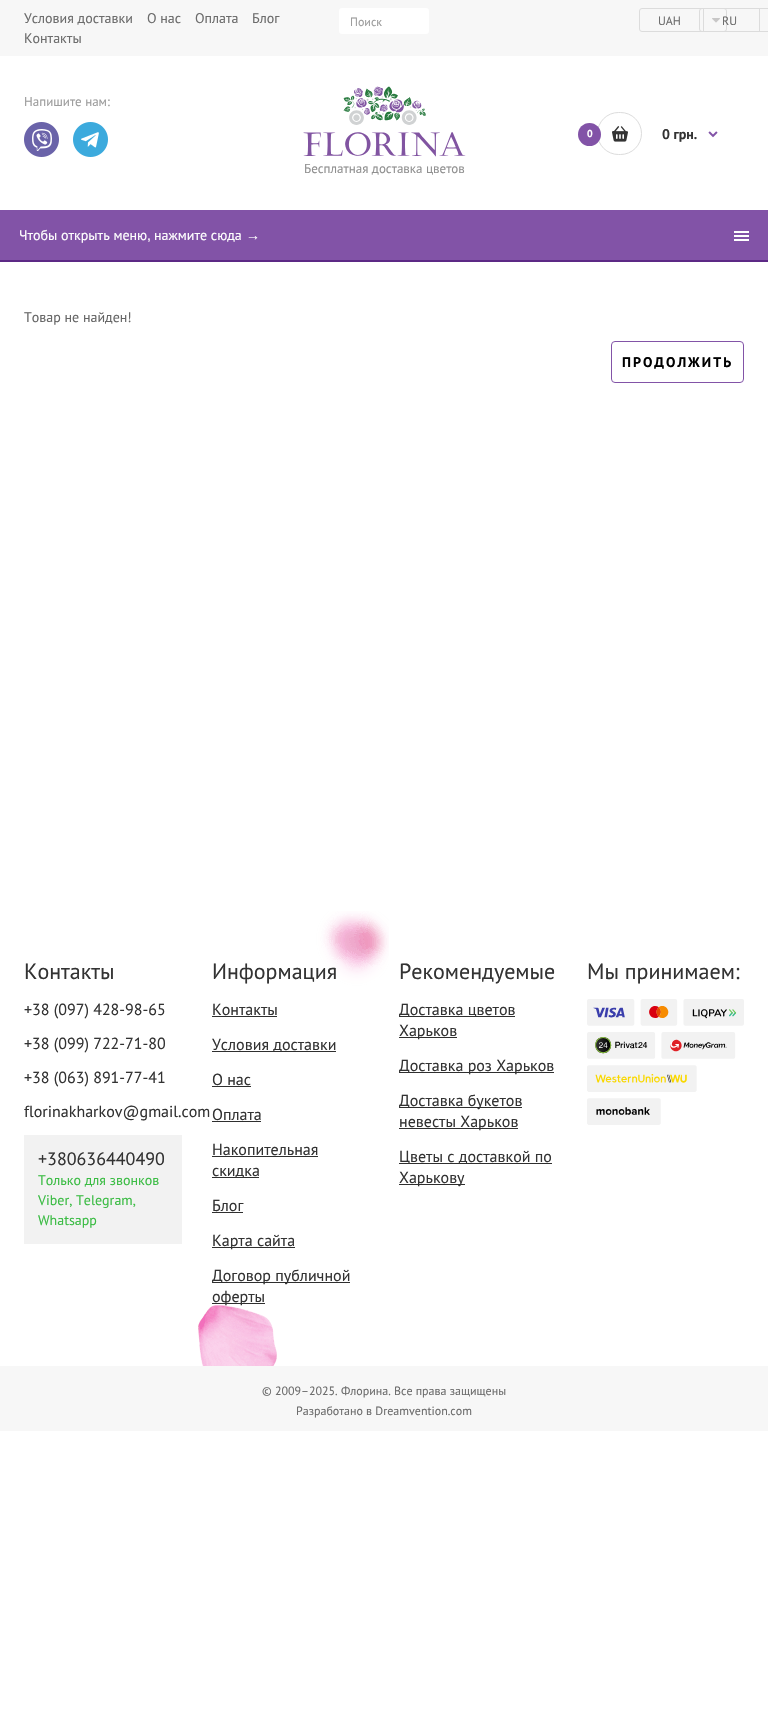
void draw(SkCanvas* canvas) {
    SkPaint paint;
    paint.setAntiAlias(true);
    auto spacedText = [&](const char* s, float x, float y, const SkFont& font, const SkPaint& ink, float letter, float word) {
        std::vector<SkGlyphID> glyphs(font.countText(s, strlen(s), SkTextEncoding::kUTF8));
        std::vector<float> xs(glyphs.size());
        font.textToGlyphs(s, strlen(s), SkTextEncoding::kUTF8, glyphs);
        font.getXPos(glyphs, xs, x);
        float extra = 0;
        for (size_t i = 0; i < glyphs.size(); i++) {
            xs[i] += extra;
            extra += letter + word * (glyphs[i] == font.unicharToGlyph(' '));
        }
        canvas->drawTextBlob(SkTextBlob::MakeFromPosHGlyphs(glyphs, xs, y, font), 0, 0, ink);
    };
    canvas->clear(0xFFFFFFFF);
    canvas->drawImageRect(SkImages::DeferredFromEncodedData(SkData::MakeFromFileName("img1.png")), SkRect::MakeXYWH(198, 911, 191, 455), SkSamplingOptions());
    paint.setColor(0xFFF7F7F7);
    canvas->drawRect(SkRect::MakeXYWH(0, 0, 768, 56), paint);
    SkFont font1(fontMgr->matchFamilyStyle("PT Sans", SkFontStyle::Normal()), 14);
    font1.setSubpixel(true);
    paint.setColor(0xFF6C6C6C);
    canvas->drawString("Условия доставки", 24, 23, font1, paint);
    canvas->drawString("О нас", 147, 23, font1, paint);
    canvas->drawString("Оплата", 195, 23, font1, paint);
    canvas->drawString("Блог", 252, 23, font1, paint);
    canvas->drawString("Контакты", 24, 43, font1, paint);
    paint.setColor(0xFFFFFFFF);
    canvas->drawRoundRect(SkRect::MakeXYWH(339, 8, 90, 26), 3, 3, paint);
    SkFont font2(fontMgr->matchFamilyStyle("PT Sans", SkFontStyle::Normal()), 12);
    font2.setSubpixel(true);
    paint.setColor(0xFF9C9C9C);
    canvas->drawString("Поиск", 350, 26, font2, paint);
    paint.setStyle(SkPaint::kStroke_Style);
    paint.setStrokeWidth(1);
    paint.setColor(0xFFDCDCDC);
    canvas->drawRoundRect(SkRect::MakeXYWH(639.5f, 8.5f, 87, 23), 2.5f, 2.5f, paint);
    paint.setStyle(SkPaint::kFill_Style);
    paint.setColor(0xFF6C6C6C);
    canvas->drawString("UAH", 658, 25, font2, paint);
    paint.setColor(0xFFDCDCDC);
    canvas->drawRect(SkRect::MakeXYWH(703, 9, 1, 22), paint);
    canvas->drawImageRect(SkImages::DeferredFromEncodedData(SkData::MakeFromFileName("img2.png")), SkRect::MakeXYWH(712, 18, 8, 5), SkSamplingOptions());
    paint.setStyle(SkPaint::kStroke_Style);
    canvas->drawRoundRect(SkRect::MakeXYWH(699.5f, 8.5f, 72, 23), 2.5f, 2.5f, paint);
    paint.setStyle(SkPaint::kFill_Style);
    paint.setColor(0xFF6C6C6C);
    canvas->drawString("RU", 722, 25, font2, paint);
    paint.setColor(0xFFDCDCDC);
    canvas->drawRect(SkRect::MakeXYWH(759, 9, 1, 22), paint);
    SkFont font3(fontMgr->matchFamilyStyle("PT Sans", SkFontStyle::Normal()), 13);
    font3.setSubpixel(true);
    paint.setColor(0xFF9C9C9C);
    canvas->drawString("Напишите нам:", 24, 106, font3, paint);
    canvas->drawImageRect(SkImages::DeferredFromEncodedData(SkData::MakeFromFileName("img3.png")), SkRect::MakeXYWH(24, 122, 35, 35), SkSamplingOptions());
    canvas->drawImageRect(SkImages::DeferredFromEncodedData(SkData::MakeFromFileName("img4.png")), SkRect::MakeXYWH(73, 122, 35, 35), SkSamplingOptions());
    paint.setStyle(SkPaint::kStroke_Style);
    paint.setColor(0xFFDCDCDC);
    canvas->drawRoundRect(SkRect::MakeXYWH(597.5f, 112.5f, 44, 42), 21, 21, paint);
    paint.setStyle(SkPaint::kFill_Style);
    paint.setColor(0xFF8253A7);
    canvas->drawCircle(589.5f, 134.5f, 11.5f, paint);
    SkFont font4(fontMgr->matchFamilyStyle("PT Sans", SkFontStyle::Bold()), 10);
    font4.setSubpixel(true);
    paint.setColor(0xFFFFFFFF);
    canvas->drawString("0", 587, 137, font4, paint);
    canvas->drawImageRect(SkImages::DeferredFromEncodedData(SkData::MakeFromFileName("img5.png")), SkRect::MakeXYWH(612, 126, 16, 16), SkSamplingOptions());
    SkFont font5(fontMgr->matchFamilyStyle("PT Sans", SkFontStyle::Bold()), 14);
    font5.setSubpixel(true);
    paint.setColor(0xFF333333);
    canvas->drawString("0 грн.", 662, 139, font5, paint);
    canvas->drawImageRect(SkImages::DeferredFromEncodedData(SkData::MakeFromFileName("img6.png")), SkRect::MakeXYWH(708, 131, 10, 7), SkSamplingOptions());
    canvas->drawImageRect(SkImages::DeferredFromEncodedData(SkData::MakeFromFileName("img7.png")), SkRect::MakeXYWH(303, 86, 163, 71), SkSamplingOptions());
    paint.setColor(0xFF909090);
    canvas->drawString("Бесплатная доставка цветов", 304, 173, font3, paint);
    paint.setColor(0xFF8253A7);
    canvas->drawRect(SkRect::MakeXYWH(0, 210, 768, 50), paint);
    paint.setColor(0xFF5C2985);
    canvas->drawRect(SkRect::MakeXYWH(0, 260, 768, 2), paint);
    paint.setColor(0xFFFFFFFF);
    canvas->drawString("Чтобы открыть меню", 19, 240, font1, paint);
    SkFont font6(fontMgr->matchFamilyStyle("Liberation Sans", SkFontStyle::Normal()), 14);
    font6.setSubpixel(true);
    canvas->drawString(",", 147, 240, font6, paint);
    canvas->drawString("нажмите сюда", 154, 240, font1, paint);
    canvas->drawString("→", 246, 240, font6, paint);
    canvas->drawRect(SkRect::MakeXYWH(734, 231, 15, 2), paint);
    canvas->drawRect(SkRect::MakeXYWH(734, 235, 15, 2), paint);
    canvas->drawRect(SkRect::MakeXYWH(734, 239, 15, 2), paint);
    paint.setColor(0xFF666666);
    canvas->drawString("Товар не найден!", 24, 322, font1, paint);
    paint.setStyle(SkPaint::kStroke_Style);
    paint.setColor(0xFF8253A7);
    canvas->drawRoundRect(SkRect::MakeXYWH(611.5f, 341.5f, 132, 41), 3.5f, 3.5f, paint);
    paint.setStyle(SkPaint::kFill_Style);
    paint.setColor(0xFF000000);
    spacedText("ПРОДОЛЖИТЬ", 622, 367, font5, paint, 2, 0);
    SkFont font7(fontMgr->matchFamilyStyle("PT Sans", SkFontStyle::Normal()), 22);
    font7.setSubpixel(true);
    paint.setColor(0xFF333333);
    canvas->drawString("Контакты", 24, 979, font7, paint);
    SkFont font8(fontMgr->matchFamilyStyle("PT Sans", SkFontStyle::Normal()), 16);
    font8.setSubpixel(true);
    canvas->drawString("+38 (097) 428-98-65", 24, 1015, font8, paint);
    canvas->drawString("+38 (099) 722-71-80", 24, 1049, font8, paint);
    canvas->drawString("+38 (063) 891-77-41", 24, 1083, font8, paint);
    canvas->drawString("florinakharkov@gmail.com", 24, 1117, font8, paint);
    paint.setColor(0xFFF2F2F2);
    canvas->drawRect(SkRect::MakeXYWH(24, 1135, 158, 109), paint);
    SkFont font9(fontMgr->matchFamilyStyle("PT Sans", SkFontStyle::Normal()), 18);
    font9.setSubpixel(true);
    paint.setColor(0xFF333333);
    canvas->drawString("+380636440490", 38, 1165, font9, paint);
    paint.setColor(0xFF3BBC44);
    canvas->drawString("Только для звонков", 38, 1185, font1, paint);
    canvas->drawString("Viber, Telegram,", 38, 1205, font1, paint);
    canvas->drawString("Whatsapp", 38, 1225, font1, paint);
    paint.setColor(0xFF333333);
    canvas->drawString("Информация", 212, 979, font7, paint);
    canvas->drawString("Контакты", 212, 1015, font8, paint);
    paint.setColor(0xFF2F2F2F);
    canvas->drawRect(SkRect::MakeXYWH(212, 1016, 65, 1), paint);
    canvas->drawRect(SkRect::MakeXYWH(212, 1051, 124, 1), paint);
    paint.setColor(0xFF333333);
    canvas->drawString("Условия доставки", 212, 1050, font8, paint);
    canvas->drawString("О нас", 212, 1085, font8, paint);
    paint.setColor(0xFF2F2F2F);
    canvas->drawRect(SkRect::MakeXYWH(212, 1086, 39, 1), paint);
    paint.setColor(0xFF333333);
    canvas->drawString("Оплата", 212, 1120, font8, paint);
    paint.setColor(0xFF2F2F2F);
    canvas->drawRect(SkRect::MakeXYWH(212, 1121, 49, 1), paint);
    paint.setColor(0xFF333333);
    canvas->drawString("Накопительная", 212, 1155, font8, paint);
    paint.setColor(0xFF2F2F2F);
    canvas->drawRect(SkRect::MakeXYWH(212, 1156, 106, 1), paint);
    canvas->drawRect(SkRect::MakeXYWH(212, 1177, 47, 1), paint);
    paint.setColor(0xFF333333);
    canvas->drawString("скидка", 212, 1176, font8, paint);
    canvas->drawString("Блог", 212, 1211, font8, paint);
    paint.setColor(0xFF2F2F2F);
    canvas->drawRect(SkRect::MakeXYWH(212, 1212, 31, 1), paint);
    canvas->drawRect(SkRect::MakeXYWH(212, 1247, 83, 1), paint);
    paint.setColor(0xFF333333);
    canvas->drawString("Карта сайта", 212, 1246, font8, paint);
    paint.setColor(0xFF2F2F2F);
    canvas->drawRect(SkRect::MakeXYWH(212, 1282, 138, 1), paint);
    paint.setColor(0xFF333333);
    canvas->drawString("Договор публичной", 212, 1281, font8, paint);
    paint.setColor(0xFF2F2F2F);
    canvas->drawRect(SkRect::MakeXYWH(212, 1303, 53, 1), paint);
    paint.setColor(0xFF333333);
    canvas->drawString("оферты", 212, 1302, font8, paint);
    canvas->drawString("Рекомендуемые", 399, 979, font7, paint);
    paint.setColor(0xFF2F2F2F);
    canvas->drawRect(SkRect::MakeXYWH(399, 1016, 116, 1), paint);
    paint.setColor(0xFF333333);
    canvas->drawString("Доставка цветов", 399, 1015, font8, paint);
    paint.setColor(0xFF2F2F2F);
    canvas->drawRect(SkRect::MakeXYWH(399, 1037, 58, 1), paint);
    paint.setColor(0xFF333333);
    canvas->drawString("Харьков", 399, 1036, font8, paint);
    paint.setColor(0xFF2F2F2F);
    canvas->drawRect(SkRect::MakeXYWH(399, 1072, 155, 1), paint);
    paint.setColor(0xFF333333);
    canvas->drawString("Доставка роз Харьков", 399, 1071, font8, paint);
    paint.setColor(0xFF2F2F2F);
    canvas->drawRect(SkRect::MakeXYWH(399, 1107, 123, 1), paint);
    paint.setColor(0xFF333333);
    canvas->drawString("Доставка букетов", 399, 1106, font8, paint);
    paint.setColor(0xFF2F2F2F);
    canvas->drawRect(SkRect::MakeXYWH(399, 1128, 119, 1), paint);
    paint.setColor(0xFF333333);
    canvas->drawString("невесты Харьков", 399, 1127, font8, paint);
    paint.setColor(0xFF2F2F2F);
    canvas->drawRect(SkRect::MakeXYWH(399, 1163, 153, 1), paint);
    paint.setColor(0xFF333333);
    canvas->drawString("Цветы с доставкой по", 399, 1162, font8, paint);
    paint.setColor(0xFF2F2F2F);
    canvas->drawRect(SkRect::MakeXYWH(399, 1184, 66, 1), paint);
    paint.setColor(0xFF333333);
    canvas->drawString("Харькову", 399, 1183, font8, paint);
    canvas->drawString("Мы принимаем:", 587, 979, font7, paint);
    canvas->drawImageRect(SkImages::DeferredFromEncodedData(SkData::MakeFromFileName("img8.png")), SkRect::MakeXYWH(587, 999, 157, 126), SkSamplingOptions());
    paint.setColor(0xFFF7F7F7);
    canvas->drawRect(SkRect::MakeXYWH(0, 1366, 768, 65), paint);
    paint.setColor(0xFF6C6C6C);
    canvas->drawString("© 2009–2025. Флорина. Все права защищены", 262, 1395, font2, paint);
    canvas->drawString("Разработано в Dreamvention.com", 296, 1415, font2, paint);
}
